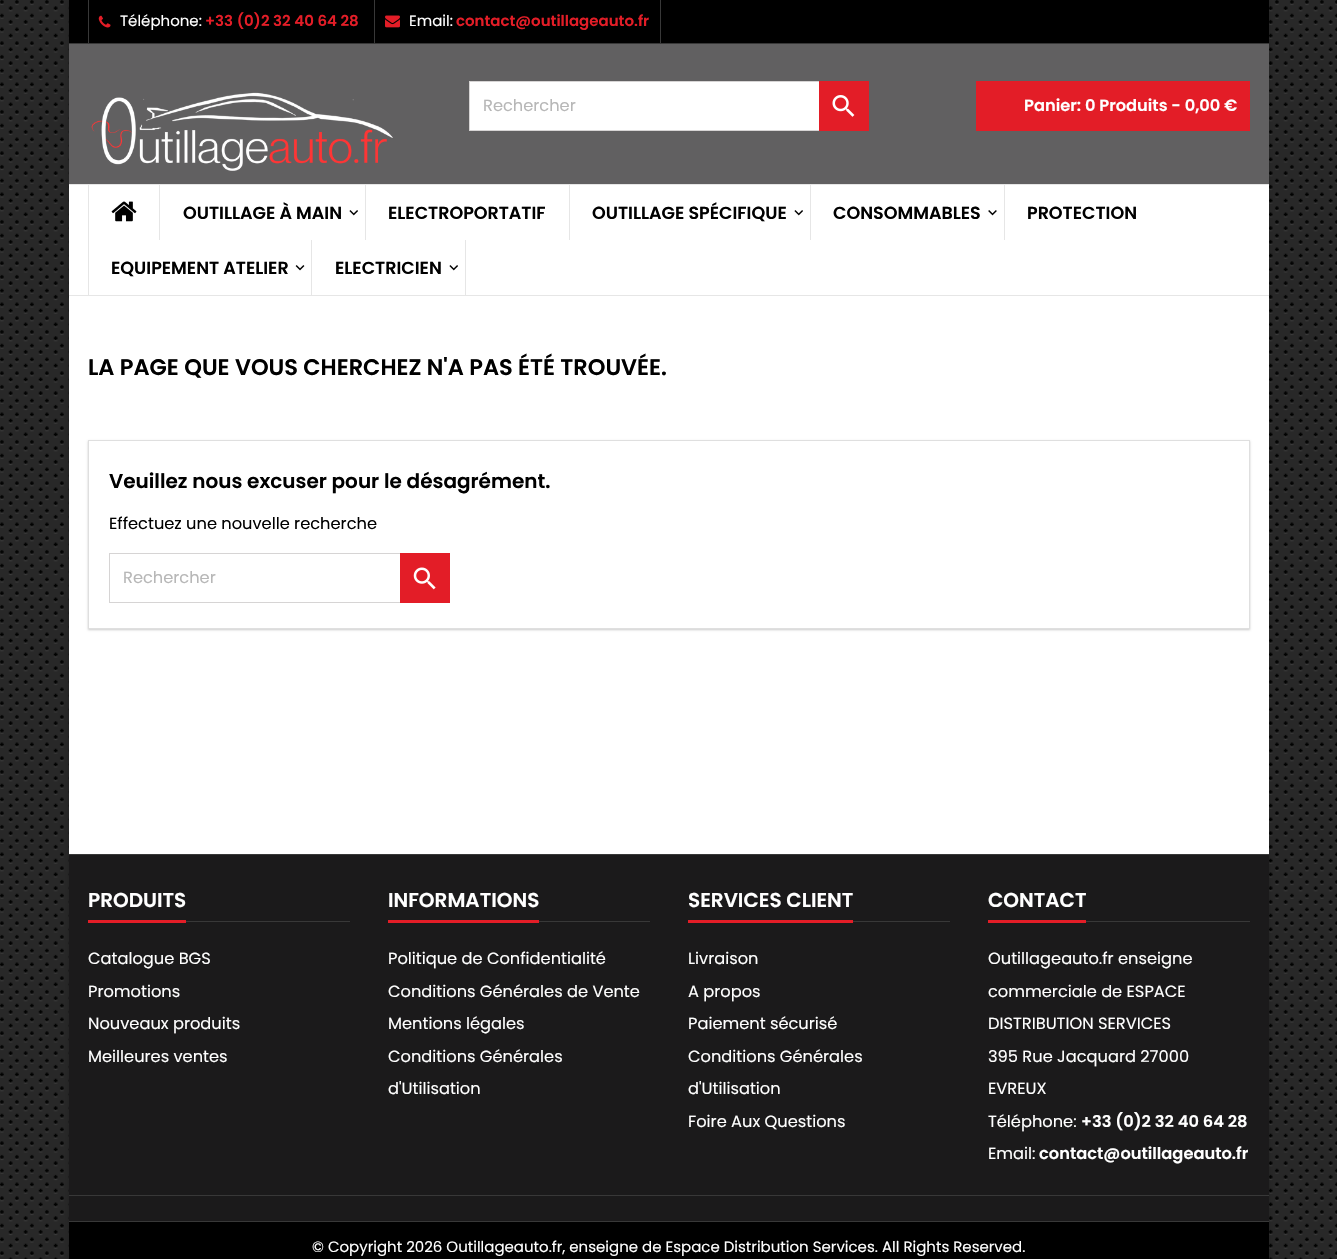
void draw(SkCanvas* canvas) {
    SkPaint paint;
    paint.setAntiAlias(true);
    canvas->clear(0xFFFFFFFF);
    canvas->drawImageRect(SkImages::DeferredFromEncodedData(SkData::MakeFromFileName("img1.png")), SkRect::MakeXYWH(0, 0, 1337, 1259), SkSamplingOptions());
    paint.setColor(0x33000000);
    paint.setMaskFilter(SkMaskFilter::MakeBlur(kNormal_SkBlurStyle, 2.5f));
    canvas->drawRect(SkRect::MakeXYWH(69, 0, 1200, 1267), paint);
    paint.setMaskFilter(nullptr);
    paint.setColor(0xFFFFFFFF);
    canvas->drawRect(SkRect::MakeXYWH(69, 185, 1200, 669), paint);
    paint.setColor(0xFF000000);
    canvas->drawRect(SkRect::MakeXYWH(69, 0, 1200, 43), paint);
    paint.setColor(0xFF383838);
    canvas->drawRect(SkRect::MakeXYWH(69, 43, 1200, 1), paint);
    canvas->drawRect(SkRect::MakeXYWH(88, 0, 1, 43), paint);
    canvas->drawImageRect(SkImages::DeferredFromEncodedData(SkData::MakeFromFileName("img2.png")), SkRect::MakeXYWH(98, 15, 13, 13), SkSamplingOptions());
    SkFont font1(fontMgr->matchFamilyStyle("Poppins", SkFontStyle::Normal()), 15);
    font1.setSubpixel(true);
    paint.setColor(0xFFFFFFFF);
    canvas->drawString("Téléphone:", 120, 26, font1, paint);
    SkFont font2(fontMgr->matchFamilyStyle("Poppins", SkFontStyle(600, SkFontStyle::kNormal_Width, SkFontStyle::kUpright_Slant)), 15);
    font2.setSubpixel(true);
    paint.setColor(0xFFE31D27);
    canvas->drawString("+33 (0)2 32 40 64 28", 205, 26, font2, paint);
    paint.setColor(0xFF383838);
    canvas->drawRect(SkRect::MakeXYWH(660, 0, 1, 43), paint);
    canvas->drawRect(SkRect::MakeXYWH(374, 0, 1, 43), paint);
    canvas->drawImageRect(SkImages::DeferredFromEncodedData(SkData::MakeFromFileName("img3.png")), SkRect::MakeXYWH(385, 15, 15, 13), SkSamplingOptions());
    paint.setColor(0xFFFFFFFF);
    canvas->drawString("Email:", 409, 26, font1, paint);
    paint.setColor(0xFFE31D27);
    canvas->drawString("contact@outillageauto.fr", 456, 26, font2, paint);
    paint.setColor(0xFF616061);
    canvas->drawRect(SkRect::MakeXYWH(69, 44, 1200, 140), paint);
    canvas->drawImageRect(SkImages::DeferredFromEncodedData(SkData::MakeFromFileName("img4.png")), SkRect::MakeXYWH(91, 92, 302, 79), SkSamplingOptions());
    paint.setColor(0xFFFFFFFF);
    canvas->drawRect(SkRect::MakeXYWH(470, 82, 349, 48), paint);
    paint.setStyle(SkPaint::kStroke_Style);
    paint.setStrokeWidth(1);
    paint.setColor(0xFFD6D4D4);
    canvas->drawRect(SkRect::MakeXYWH(469.5f, 81.5f, 399, 49), paint);
    SkFont font3(fontMgr->matchFamilyStyle("Poppins", SkFontStyle::Normal()), 16.25f);
    font3.setSubpixel(true);
    paint.setStyle(SkPaint::kFill_Style);
    paint.setColor(0xFFB7B7B7);
    canvas->drawString("Rechercher", 483, 111, font3, paint);
    paint.setColor(0xFFE31D27);
    canvas->drawRect(SkRect::MakeXYWH(819, 81, 50, 50), paint);
    canvas->drawImageRect(SkImages::DeferredFromEncodedData(SkData::MakeFromFileName("img5.png")), SkRect::MakeXYWH(832, 95, 23, 22), SkSamplingOptions());
    canvas->drawRect(SkRect::MakeXYWH(976, 81, 274, 50), paint);
    SkFont font4(fontMgr->matchFamilyStyle("Poppins", SkFontStyle(600, SkFontStyle::kNormal_Width, SkFontStyle::kUpright_Slant)), 16.25f);
    font4.setSubpixel(true);
    paint.setColor(0xFFFFFFFF);
    canvas->drawString("Panier: 0 Produits - 0,00 €", 1024, 111, font4, paint);
    paint.setColor(0xFFE6E6E6);
    canvas->drawRect(SkRect::MakeXYWH(69, 184, 1200, 1), paint);
    canvas->drawRect(SkRect::MakeXYWH(69, 295, 1200, 1), paint);
    canvas->drawRect(SkRect::MakeXYWH(88, 185, 1, 110), paint);
    canvas->drawImageRect(SkImages::DeferredFromEncodedData(SkData::MakeFromFileName("img6.png")), SkRect::MakeXYWH(111, 201, 26, 21), SkSamplingOptions());
    canvas->drawRect(SkRect::MakeXYWH(159, 185, 1, 55), paint);
    SkFont font5(fontMgr->matchFamilyStyle("Poppins", SkFontStyle(600, SkFontStyle::kNormal_Width, SkFontStyle::kUpright_Slant)), 17.5f);
    font5.setSubpixel(true);
    paint.setColor(0xFF000000);
    canvas->drawString("OUTILLAGE À MAIN", 183, 219, font5, paint);
    canvas->drawImageRect(SkImages::DeferredFromEncodedData(SkData::MakeFromFileName("img7.png")), SkRect::MakeXYWH(349, 210, 9, 6), SkSamplingOptions());
    paint.setColor(0xFFE6E6E6);
    canvas->drawRect(SkRect::MakeXYWH(365, 185, 1, 55), paint);
    paint.setColor(0xFF000000);
    canvas->drawString("ELECTROPORTATIF", 388, 219, font5, paint);
    paint.setColor(0xFFE6E6E6);
    canvas->drawRect(SkRect::MakeXYWH(569, 185, 1, 55), paint);
    paint.setColor(0xFF000000);
    canvas->drawString("OUTILLAGE SPÉCIFIQUE", 592, 219, font5, paint);
    canvas->drawImageRect(SkImages::DeferredFromEncodedData(SkData::MakeFromFileName("img7.png")), SkRect::MakeXYWH(794, 210, 9, 6), SkSamplingOptions());
    paint.setColor(0xFFE6E6E6);
    canvas->drawRect(SkRect::MakeXYWH(810, 185, 1, 55), paint);
    paint.setColor(0xFF000000);
    canvas->drawString("CONSOMMABLES", 833, 219, font5, paint);
    canvas->drawImageRect(SkImages::DeferredFromEncodedData(SkData::MakeFromFileName("img8.png")), SkRect::MakeXYWH(988, 210, 9, 6), SkSamplingOptions());
    paint.setColor(0xFFE6E6E6);
    canvas->drawRect(SkRect::MakeXYWH(1004, 185, 1, 55), paint);
    paint.setColor(0xFF000000);
    canvas->drawString("PROTECTION", 1027, 219, font5, paint);
    canvas->drawString("EQUIPEMENT ATELIER", 111, 274, font5, paint);
    canvas->drawImageRect(SkImages::DeferredFromEncodedData(SkData::MakeFromFileName("img9.png")), SkRect::MakeXYWH(295, 265, 10, 6), SkSamplingOptions());
    paint.setColor(0xFFE6E6E6);
    canvas->drawRect(SkRect::MakeXYWH(465, 240, 1, 55), paint);
    canvas->drawRect(SkRect::MakeXYWH(311, 240, 1, 55), paint);
    paint.setColor(0xFF000000);
    canvas->drawString("ELECTRICIEN", 335, 274, font5, paint);
    canvas->drawImageRect(SkImages::DeferredFromEncodedData(SkData::MakeFromFileName("img7.png")), SkRect::MakeXYWH(449, 265, 9, 6), SkSamplingOptions());
    SkFont font6(fontMgr->matchFamilyStyle("Poppins", SkFontStyle(600, SkFontStyle::kNormal_Width, SkFontStyle::kUpright_Slant)), 22.5f);
    font6.setSubpixel(true);
    canvas->drawString("LA PAGE QUE VOUS CHERCHEZ N'A PAS ÉTÉ TROUVÉE.", 88, 375, font6, paint);
    paint.setColor(0x33000000);
    paint.setMaskFilter(SkMaskFilter::MakeBlur(kNormal_SkBlurStyle, 1));
    canvas->drawRect(SkRect::MakeXYWH(88, 441, 1162, 189), paint);
    paint.setMaskFilter(nullptr);
    paint.setColor(0xFFFFFFFF);
    canvas->drawRect(SkRect::MakeXYWH(88.5f, 440.5f, 1161, 188), paint);
    paint.setStyle(SkPaint::kStroke_Style);
    paint.setColor(0xFFDFDFDF);
    canvas->drawRect(SkRect::MakeXYWH(88.5f, 440.5f, 1161, 188), paint);
    SkFont font7(fontMgr->matchFamilyStyle("Poppins", SkFontStyle(600, SkFontStyle::kNormal_Width, SkFontStyle::kUpright_Slant)), 20);
    font7.setSubpixel(true);
    paint.setStyle(SkPaint::kFill_Style);
    paint.setColor(0xFF000000);
    canvas->drawString("Veuillez nous excuser pour le désagrément.", 109, 488, font7, paint);
    canvas->drawString("Effectuez une nouvelle recherche", 109, 529, font3, paint);
    paint.setStyle(SkPaint::kStroke_Style);
    paint.setColor(0xFFD6D4D4);
    canvas->drawRect(SkRect::MakeXYWH(109.5f, 553.5f, 340, 49), paint);
    paint.setStyle(SkPaint::kFill_Style);
    paint.setColor(0xFFB7B7B7);
    canvas->drawString("Rechercher", 123, 583, font3, paint);
    paint.setColor(0xFFE31D27);
    canvas->drawRect(SkRect::MakeXYWH(400, 553, 50, 50), paint);
    canvas->drawImageRect(SkImages::DeferredFromEncodedData(SkData::MakeFromFileName("img10.png")), SkRect::MakeXYWH(413, 567, 23, 23), SkSamplingOptions());
    paint.setColor(0xFF1B1A1B);
    canvas->drawRect(SkRect::MakeXYWH(69, 855, 1200, 366), paint);
    paint.setColor(0xFF383838);
    canvas->drawRect(SkRect::MakeXYWH(69, 854, 1200, 1), paint);
    canvas->drawRect(SkRect::MakeXYWH(186, 921, 164, 1), paint);
    paint.setColor(0xFFE31D27);
    canvas->drawRect(SkRect::MakeXYWH(88, 920, 98, 3), paint);
    paint.setColor(0xFFFFFFFF);
    canvas->drawString("PRODUITS", 88, 907, font7, paint);
    canvas->drawString("Catalogue BGS", 88, 964, font3, paint);
    canvas->drawString("Promotions", 88, 997, font3, paint);
    canvas->drawString("Nouveaux produits", 88, 1029, font3, paint);
    canvas->drawString("Meilleures ventes", 88, 1062, font3, paint);
    paint.setColor(0xFF383838);
    canvas->drawRect(SkRect::MakeXYWH(539, 921, 111, 1), paint);
    paint.setColor(0xFFE31D27);
    canvas->drawRect(SkRect::MakeXYWH(388, 920, 151, 3), paint);
    paint.setColor(0xFFFFFFFF);
    canvas->drawString("INFORMATIONS", 388, 907, font7, paint);
    canvas->drawString("Politique de Confidentialité", 388, 964, font3, paint);
    canvas->drawString("Conditions Générales de Vente", 388, 997, font3, paint);
    canvas->drawString("Mentions légales", 388, 1029, font3, paint);
    canvas->drawString("Conditions Générales", 388, 1062, font3, paint);
    canvas->drawString("d'Utilisation", 388, 1094, font3, paint);
    paint.setColor(0xFF383838);
    canvas->drawRect(SkRect::MakeXYWH(853, 921, 97, 1), paint);
    paint.setColor(0xFFE31D27);
    canvas->drawRect(SkRect::MakeXYWH(688, 920, 165, 3), paint);
    paint.setColor(0xFFFFFFFF);
    canvas->drawString("SERVICES CLIENT", 688, 907, font7, paint);
    canvas->drawString("Livraison", 688, 964, font3, paint);
    canvas->drawString("A propos", 688, 997, font3, paint);
    canvas->drawString("Paiement sécurisé", 688, 1029, font3, paint);
    canvas->drawString("Conditions Générales", 688, 1062, font3, paint);
    canvas->drawString("d'Utilisation", 688, 1094, font3, paint);
    canvas->drawString("Foire Aux Questions", 688, 1127, font3, paint);
    paint.setColor(0xFF383838);
    canvas->drawRect(SkRect::MakeXYWH(1086, 921, 164, 1), paint);
    paint.setColor(0xFFE31D27);
    canvas->drawRect(SkRect::MakeXYWH(988, 920, 98, 3), paint);
    paint.setColor(0xFFFFFFFF);
    canvas->drawString("CONTACT", 988, 907, font7, paint);
    canvas->drawString("Outillageauto.fr enseigne", 988, 964, font3, paint);
    canvas->drawString("commerciale de ESPACE", 988, 997, font3, paint);
    canvas->drawString("DISTRIBUTION SERVICES", 988, 1029, font3, paint);
    canvas->drawString("395 Rue Jacquard 27000", 988, 1062, font3, paint);
    canvas->drawString("EVREUX", 988, 1094, font3, paint);
    canvas->drawString("Téléphone:", 988, 1127, font3, paint);
    canvas->drawString("+33 (0)2 32 40 64 28", 1081, 1127, font4, paint);
    canvas->drawString("Email:", 988, 1159, font3, paint);
    canvas->drawString("contact@outillageauto.fr", 1039, 1159, font4, paint);
    paint.setColor(0xFF383838);
    canvas->drawRect(SkRect::MakeXYWH(69, 1195, 1200, 1), paint);
    paint.setColor(0xFF000000);
    canvas->drawRect(SkRect::MakeXYWH(69, 1222, 1200, 37), paint);
    paint.setColor(0xFF383838);
    canvas->drawRect(SkRect::MakeXYWH(69, 1221, 1200, 1), paint);
    paint.setColor(0xFFFFFFFF);
    canvas->drawString("© Copyright 2026 Outillageauto.fr, enseigne de Espace Distribution Services. All Rights Reserved.", 312, 1252, font1, paint);
}
